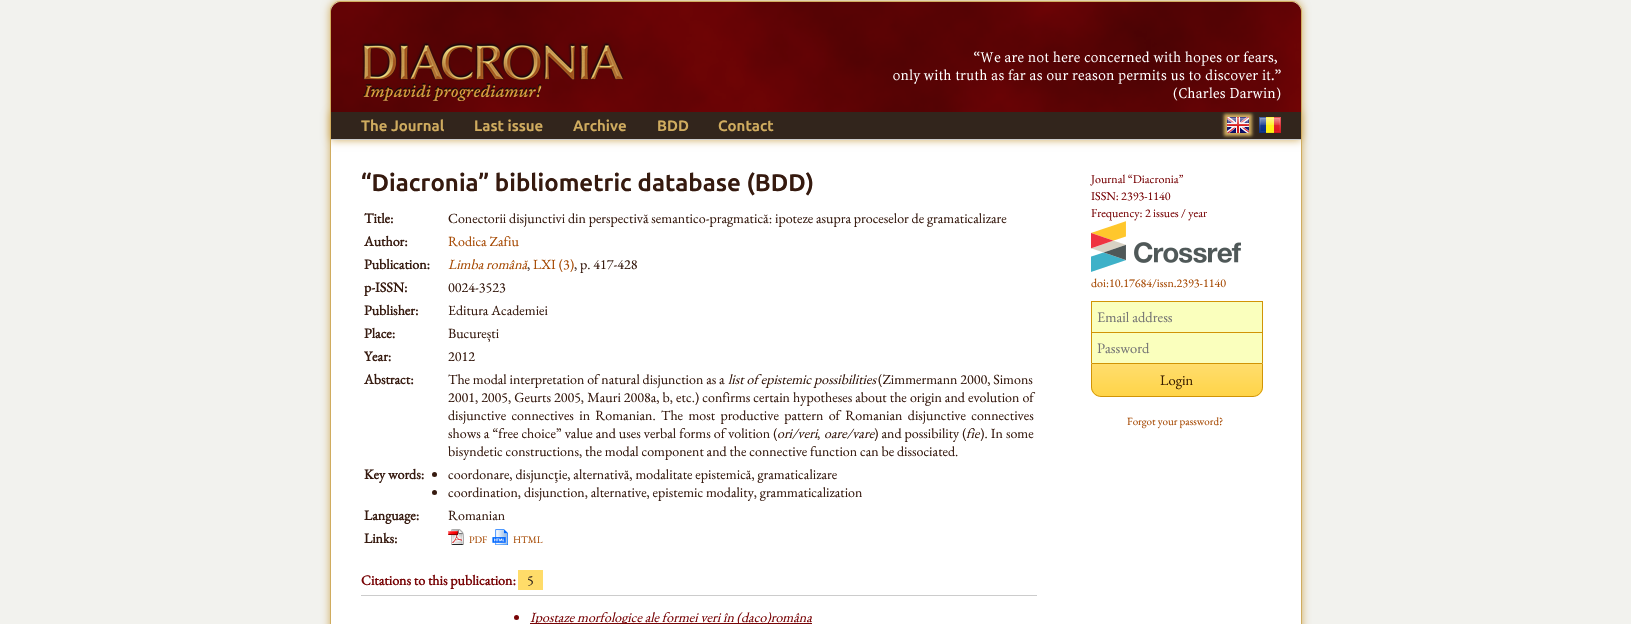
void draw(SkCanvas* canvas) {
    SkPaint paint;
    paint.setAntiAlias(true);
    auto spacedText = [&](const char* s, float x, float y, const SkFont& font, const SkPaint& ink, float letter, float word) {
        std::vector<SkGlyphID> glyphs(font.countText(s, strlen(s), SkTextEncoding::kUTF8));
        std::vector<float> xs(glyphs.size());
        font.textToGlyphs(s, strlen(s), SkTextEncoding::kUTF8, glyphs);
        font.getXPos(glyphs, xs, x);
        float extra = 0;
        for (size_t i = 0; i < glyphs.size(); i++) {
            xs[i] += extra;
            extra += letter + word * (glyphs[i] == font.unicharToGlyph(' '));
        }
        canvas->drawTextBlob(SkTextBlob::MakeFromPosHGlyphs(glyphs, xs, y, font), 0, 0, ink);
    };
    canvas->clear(0xFFF2F2EE);
    paint.setColor(0xFFD0AC5F);
    paint.setMaskFilter(SkMaskFilter::MakeBlur(kNormal_SkBlurStyle, 4));
    canvas->drawRoundRect(SkRect::MakeXYWH(330, 1, 972, 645), 10, 10, paint);
    paint.setMaskFilter(nullptr);
    paint.setColor(0xFFFFFFFF);
    canvas->drawPath(SkPathBuilder().moveTo(340, 1.5f).lineTo(1292, 1.5f).cubicTo(1297, 1.5f, 1301.5f, 6, 1301.5f, 11).lineTo(1301.5f, 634.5f).lineTo(330.5f, 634.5f).lineTo(330.5f, 11).cubicTo(330.5f, 6, 335, 1.5f, 340, 1.5f).close().detach(), paint);
    paint.setStyle(SkPaint::kStroke_Style);
    paint.setStrokeWidth(1);
    paint.setColor(0xFFD0AC5F);
    canvas->drawPath(SkPathBuilder().moveTo(340, 1.5f).lineTo(1292, 1.5f).cubicTo(1297, 1.5f, 1301.5f, 6, 1301.5f, 11).lineTo(1301.5f, 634.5f).lineTo(330.5f, 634.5f).lineTo(330.5f, 11).cubicTo(330.5f, 6, 335, 1.5f, 340, 1.5f).close().detach(), paint);
    paint.setStyle(SkPaint::kFill_Style);
    paint.setMaskFilter(SkMaskFilter::MakeBlur(kNormal_SkBlurStyle, 4));
    canvas->drawRect(SkRect::MakeXYWH(331, 112, 970, 28), paint);
    paint.setMaskFilter(nullptr);
    paint.setColor(0xFF32251C);
    canvas->drawRect(SkRect::MakeXYWH(331, 112, 970, 27), paint);
    paint.setColor(0xFFCCCCCC);
    canvas->drawRect(SkRect::MakeXYWH(331, 139, 970, 1), paint);
    paint.setColor(0xFFD0AC5F);
    paint.setMaskFilter(SkMaskFilter::MakeBlur(kNormal_SkBlurStyle, 1.5f));
    canvas->drawRect(SkRect::MakeXYWH(1224, 114, 28, 22), paint);
    paint.setMaskFilter(nullptr);
    paint.setColor(0xFF600305);
    canvas->drawPath(SkPathBuilder().moveTo(341, 2).lineTo(1291, 2).cubicTo(1296.5f, 2, 1301, 6.5f, 1301, 12).lineTo(1301, 112).lineTo(331, 112).lineTo(331, 12).cubicTo(331, 6.5f, 335.5f, 2, 341, 2).close().detach(), paint);
    canvas->drawImageRect(SkImages::DeferredFromEncodedData(SkData::MakeFromFileName("img1.png")), SkRect::MakeXYWH(331, 2, 970, 110), SkSamplingOptions());
    canvas->drawImageRect(SkImages::DeferredFromEncodedData(SkData::MakeFromFileName("img2.png")), SkRect::MakeXYWH(362, 42, 262, 59), SkSamplingOptions());
    canvas->drawImageRect(SkImages::DeferredFromEncodedData(SkData::MakeFromFileName("img3.png")), SkRect::MakeXYWH(893, 51, 388, 50), SkSamplingOptions());
    SkFont font1(fontMgr->matchFamilyStyle("Ubuntu", SkFontStyle::Bold()), 15);
    font1.setSubpixel(true);
    paint.setColor(0xFFD0AC5F);
    canvas->drawString("The Journal", 361, 131, font1, paint);
    canvas->drawString("Last issue", 474, 131, font1, paint);
    canvas->drawString("Archive", 573, 131, font1, paint);
    canvas->drawString("BDD", 657, 131, font1, paint);
    canvas->drawString("Contact", 718, 131, font1, paint);
    canvas->drawImageRect(SkImages::DeferredFromEncodedData(SkData::MakeFromFileName("img4.png")), SkRect::MakeXYWH(1227, 117, 22, 16), SkSamplingOptions());
    canvas->drawImageRect(SkImages::DeferredFromEncodedData(SkData::MakeFromFileName("img5.png")), SkRect::MakeXYWH(1259, 117, 22, 16), SkSamplingOptions());
    SkFont font2(fontMgr->matchFamilyStyle("Ubuntu", SkFontStyle::Bold()), 24);
    font2.setSubpixel(true);
    paint.setColor(0xFF361A0F);
    canvas->drawString("“Diacronia” bibliometric database (BDD)", 361, 191, font2, paint);
    SkFont font3(fontMgr->matchFamilyStyle("EB Garamond", SkFontStyle::Bold()), 14);
    font3.setSubpixel(true);
    canvas->drawString("Title:", 364, 223, font3, paint);
    SkFont font4(fontMgr->matchFamilyStyle("EB Garamond", SkFontStyle::Normal()), 14);
    font4.setSubpixel(true);
    canvas->drawString("Conectorii disjunctivi din perspectivă semantico-pragmatică: ipoteze asupra proceselor de gramaticalizare", 448, 223, font4, paint);
    canvas->drawString("Author:", 364, 246, font3, paint);
    paint.setColor(0xFFA64902);
    canvas->drawString("Rodica Zafiu", 448, 246, font4, paint);
    paint.setColor(0xFF361A0F);
    canvas->drawString("Publication:", 364, 269, font3, paint);
    SkFont font5(fontMgr->matchFamilyStyle("EB Garamond", SkFontStyle::Italic()), 14);
    font5.setSubpixel(true);
    paint.setColor(0xFFA64902);
    canvas->drawString("Limba română", 448, 269, font5, paint);
    canvas->drawString("LXI (3)", 533, 269, font4, paint);
    paint.setColor(0xFF361A0F);
    canvas->drawString(", p. 417-428", 574, 269, font4, paint);
    canvas->drawString(",", 527, 269, font4, paint);
    canvas->drawString("p-ISSN:", 364, 292, font3, paint);
    canvas->drawString("0024-3523", 448, 292, font4, paint);
    canvas->drawString("Publisher:", 364, 315, font3, paint);
    canvas->drawString("Editura Academiei", 448, 315, font4, paint);
    canvas->drawString("Place:", 364, 338, font3, paint);
    canvas->drawString("București", 448, 338, font4, paint);
    canvas->drawString("Year:", 364, 361, font3, paint);
    canvas->drawString("2012", 448, 361, font4, paint);
    canvas->drawString("Abstract:", 364, 384, font3, paint);
    canvas->drawString("The modal interpretation of natural disjunction as a", 448, 384, font4, paint);
    canvas->drawString("list of epistemic possibilities", 728, 384, font5, paint);
    canvas->drawString("(Zimmermann 2000, Simons", 878, 384, font4, paint);
    spacedText("2001, 2005, Geurts 2005, Mauri 2008a, b, etc.) confirms certain hypotheses about the origin and evolution of", 448, 402, font4, paint, 0, 0.25f);
    spacedText("disjunctive connectives in Romanian. The most productive pattern of Romanian disjunctive connectives", 448, 420, font4, paint, 0, 2.5f);
    spacedText("shows a “free choice” value and uses verbal forms of volition (", 448, 438, font4, paint, 0, 0.25f);
    canvas->drawString("ori/veri", 777, 438, font5, paint);
    canvas->drawString("oare/vare", 824, 438, font5, paint);
    spacedText(") and possibility (", 874, 438, font4, paint, 0, 0.25f);
    canvas->drawString("fie", 966, 438, font5, paint);
    spacedText("). In some", 980, 438, font4, paint, 0, 0.25f);
    canvas->drawString(",", 817, 438, font4, paint);
    canvas->drawString("bisyndetic constructions, the modal component and the connective function can be dissociated.", 448, 456, font4, paint);
    canvas->drawString("Key words:", 364, 479, font3, paint);
    canvas->drawCircle(434.5f, 474.5f, 2.5f, paint);
    canvas->drawString("coordonare, disjuncţie, alternativă, modalitate epistemică, gramaticalizare", 448, 479, font4, paint);
    canvas->drawCircle(434.5f, 492.5f, 2.5f, paint);
    canvas->drawString("coordination, disjunction, alternative, epistemic modality, grammaticalization", 448, 497, font4, paint);
    canvas->drawString("Language:", 364, 520, font3, paint);
    canvas->drawString("Romanian", 448, 520, font4, paint);
    canvas->drawString("Links:", 364, 543, font3, paint);
    canvas->drawImageRect(SkImages::DeferredFromEncodedData(SkData::MakeFromFileName("img6.png")), SkRect::MakeXYWH(448, 529, 16, 16), SkSamplingOptions());
    SkFont font6(fontMgr->matchFamilyStyle("EB Garamond", SkFontStyle::Normal()), 10);
    font6.setSubpixel(true);
    paint.setColor(0xFFA64902);
    canvas->drawString("PDF", 469, 543, font6, paint);
    canvas->drawImageRect(SkImages::DeferredFromEncodedData(SkData::MakeFromFileName("img7.png")), SkRect::MakeXYWH(492, 529, 16, 16), SkSamplingOptions());
    canvas->drawString("HTML", 513, 543, font6, paint);
    paint.setColor(0xFF780406);
    canvas->drawString("Citations to this publication:", 361, 585, font3, paint);
    paint.setColor(0xFFFFDC69);
    canvas->drawRect(SkRect::MakeXYWH(518, 570, 25, 20), paint);
    paint.setColor(0xFF32251C);
    canvas->drawString("5", 527, 585, font4, paint);
    paint.setColor(0xFFCCCCCC);
    canvas->drawRect(SkRect::MakeXYWH(361, 595, 676, 1), paint);
    paint.setColor(0xFF780406);
    canvas->drawCircle(516.5f, 617.5f, 2.5f, paint);
    canvas->drawRect(SkRect::MakeXYWH(530, 623, 282, 1), paint);
    canvas->drawString("Ipostaze morfologice ale formei veri în (daco)româna", 530, 622, font5, paint);
    SkFont font7(fontMgr->matchFamilyStyle("EB Garamond", SkFontStyle::Normal()), 12);
    font7.setSubpixel(true);
    canvas->drawString("Journal “Diacronia”", 1091, 183, font7, paint);
    canvas->drawString("ISSN: 2393-1140", 1091, 200, font7, paint);
    canvas->drawString("Frequency: 2 issues / year", 1091, 217, font7, paint);
    canvas->drawImageRect(SkImages::DeferredFromEncodedData(SkData::MakeFromFileName("img8.png")), SkRect::MakeXYWH(1091, 221, 150, 51), SkSamplingOptions());
    paint.setColor(0xFFA64902);
    canvas->drawString("doi:10.17684/issn.2393-1140", 1091, 287, font7, paint);
    paint.setColor(0xFFFAFFBD);
    canvas->drawRect(SkRect::MakeXYWH(1092, 302, 170, 30), paint);
    paint.setColor(0xFFD19405);
    canvas->drawRect(SkRect::MakeXYWH(1091, 301, 172, 1), paint);
    canvas->drawRect(SkRect::MakeXYWH(1262, 301, 1, 31), paint);
    canvas->drawRect(SkRect::MakeXYWH(1091, 301, 1, 31), paint);
    SkFont font8(fontMgr->matchFamilyStyle("EB Garamond", SkFontStyle::Normal()), 14.5f);
    font8.setSubpixel(true);
    paint.setColor(0xFF757575);
    canvas->drawString("Email address", 1097, 322, font8, paint);
    paint.setColor(0xFFFAFFBD);
    canvas->drawRect(SkRect::MakeXYWH(1092, 333, 170, 30), paint);
    paint.setColor(0xFFD19405);
    canvas->drawRect(SkRect::MakeXYWH(1091, 332, 172, 1), paint);
    canvas->drawRect(SkRect::MakeXYWH(1262, 332, 1, 31), paint);
    canvas->drawRect(SkRect::MakeXYWH(1091, 332, 1, 31), paint);
    paint.setColor(0xFF757575);
    canvas->drawString("Password", 1097, 353, font8, paint);
    canvas->save();
    canvas->clipPath(SkPathBuilder().moveTo(1091, 363).lineTo(1263, 363).lineTo(1263, 387).cubicTo(1263, 392.5f, 1258.5f, 397, 1253, 397).lineTo(1101, 397).cubicTo(1095.5f, 397, 1091, 392.5f, 1091, 387).close().detach(), true);
    {
        const SkColor colors[] = {0xFFFFDD6D, 0xFFFFD448};
        const float stops[] = {0, 1};
        const SkPoint ends[] = {{1177, 364}, {1177, 396}};
        paint.setShader(SkGradientShader::MakeLinear(ends, colors, stops, 2, SkTileMode::kClamp));
        paint.setAlpha(255);
    }
    canvas->drawRect(SkRect::MakeXYWH(1091, 364, 172, 32), paint);
    canvas->restore();
    paint.setStyle(SkPaint::kStroke_Style);
    paint.setShader(nullptr);
    paint.setColor(0xFFD19405);
    canvas->drawPath(SkPathBuilder().moveTo(1091.5f, 363.5f).lineTo(1262.5f, 363.5f).lineTo(1262.5f, 387).cubicTo(1262.5f, 392, 1258, 396.5f, 1253, 396.5f).lineTo(1101, 396.5f).cubicTo(1096, 396.5f, 1091.5f, 392, 1091.5f, 387).close().detach(), paint);
    paint.setStyle(SkPaint::kFill_Style);
    paint.setColor(0xFF3C2000);
    canvas->drawString("Login", 1160, 385, font8, paint);
    SkFont font9(fontMgr->matchFamilyStyle("EB Garamond", SkFontStyle::Normal()), 11);
    font9.setSubpixel(true);
    paint.setColor(0xFFA64902);
    canvas->drawString("Forgot your password?", 1127, 425, font9, paint);
}
